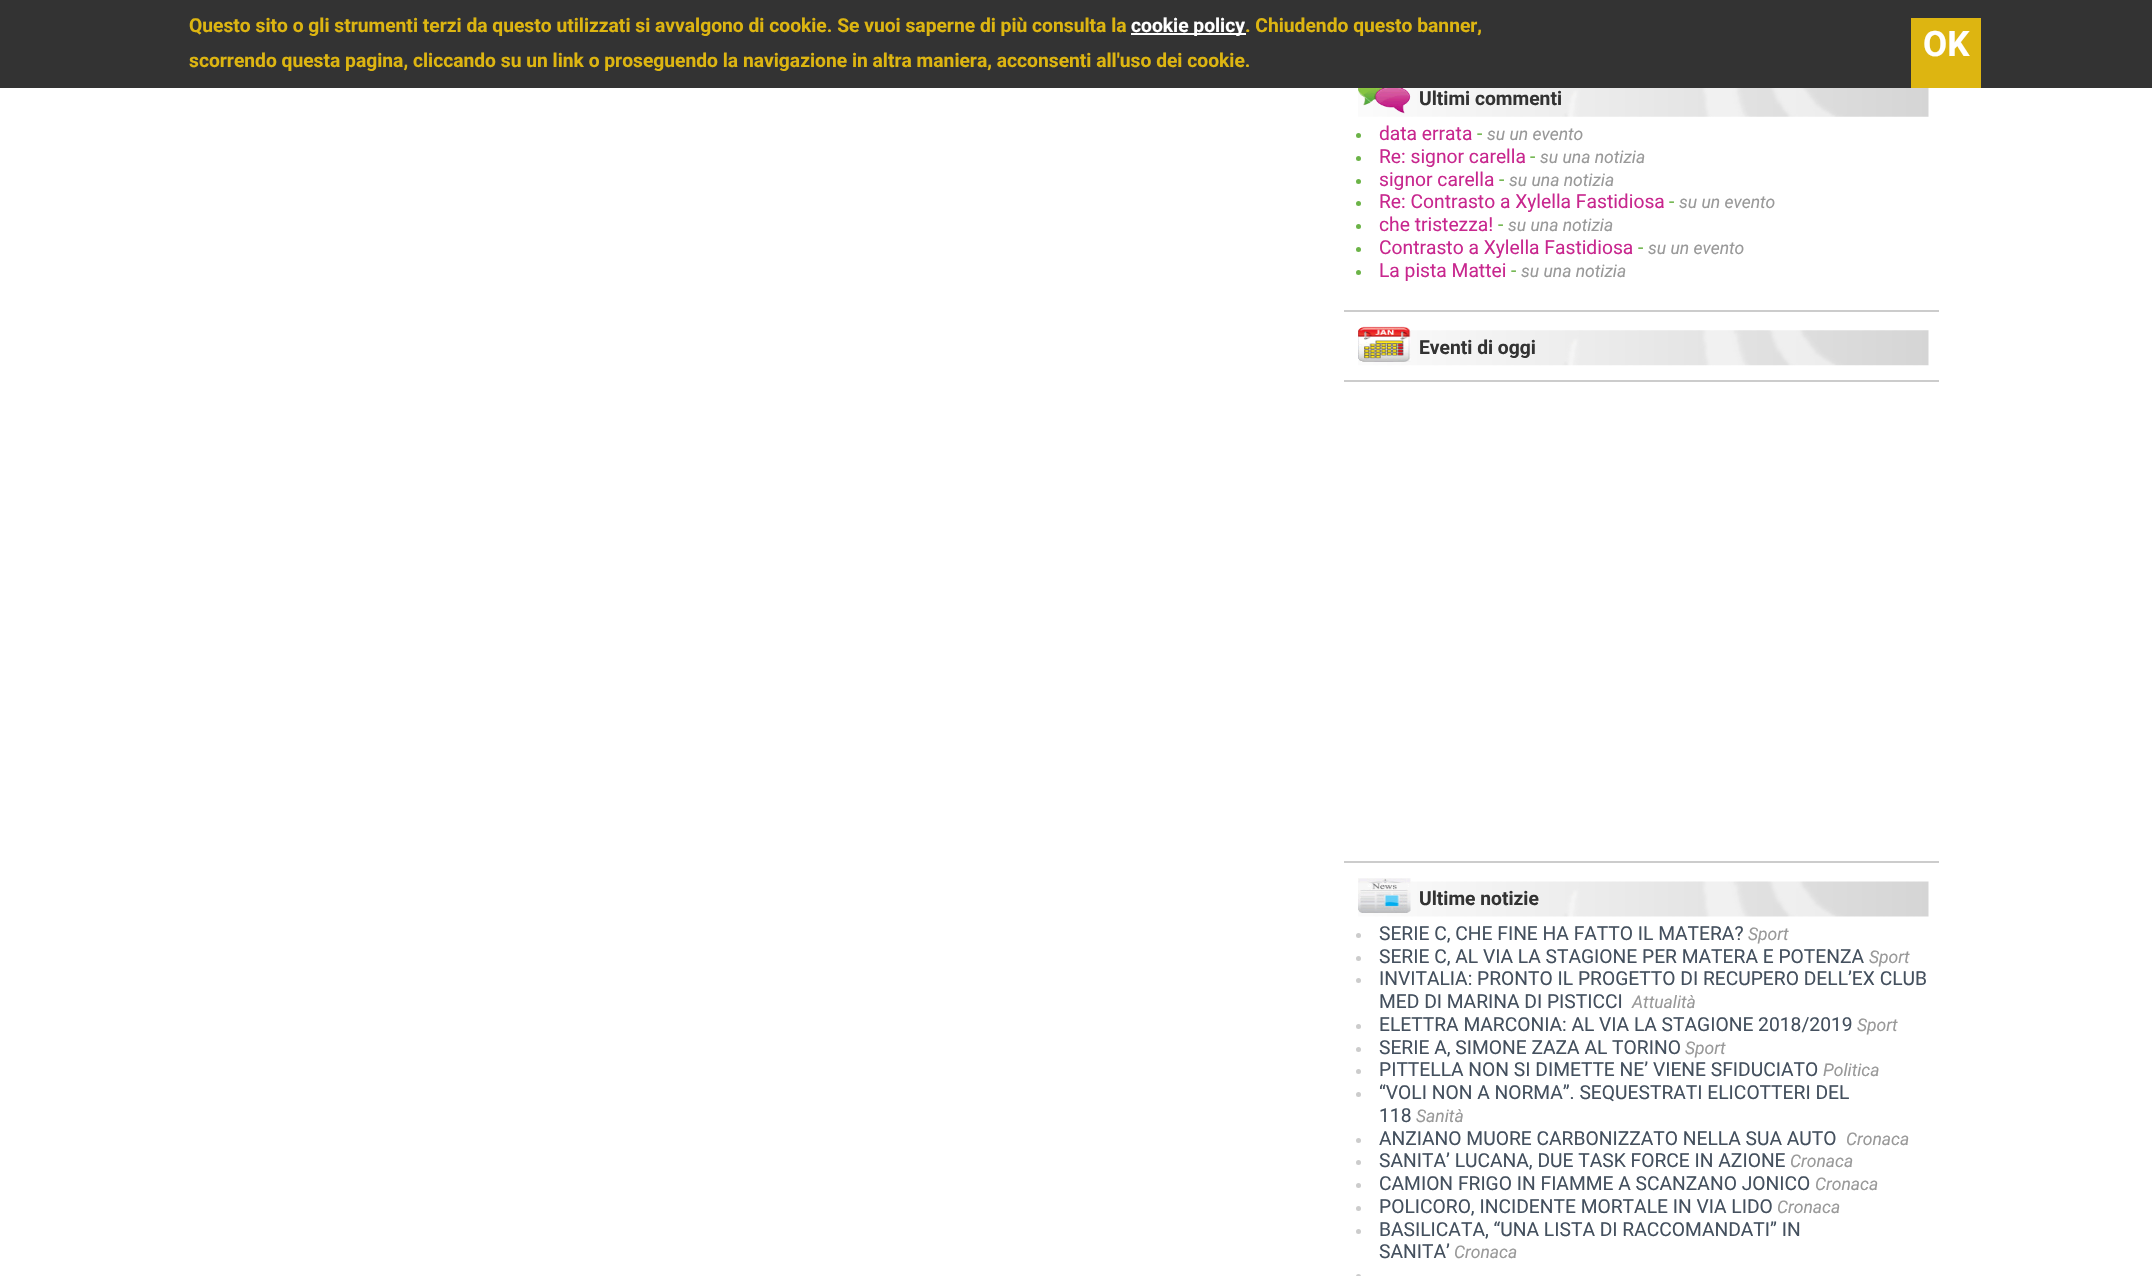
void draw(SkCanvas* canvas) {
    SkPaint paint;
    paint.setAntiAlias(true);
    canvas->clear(0xFFFFFFFF);
    paint.setColor(0xFF333333);
    canvas->drawRect(SkRect::MakeXYWH(0, 0, 2152, 88), paint);
    SkFont font1(fontMgr->matchFamilyStyle("Roboto", SkFontStyle::Bold()), 19.25f);
    font1.setSubpixel(true);
    paint.setColor(0xFFDDB511);
    canvas->drawString("Questo sito o gli strumenti terzi da questo utilizzati si avvalgono di cookie. Se vuoi saperne di più consulta la", 189, 32, font1, paint);
    paint.setColor(0xFFFFFFFF);
    canvas->drawRect(SkRect::MakeXYWH(1131, 33, 115, 2), paint);
    canvas->drawString("cookie policy", 1131, 32, font1, paint);
    paint.setColor(0xFFDDB511);
    canvas->drawString(". Chiudendo questo banner,", 1245, 32, font1, paint);
    canvas->drawRect(SkRect::MakeXYWH(1911, 18, 70, 70), paint);
    SkFont font2(fontMgr->matchFamilyStyle("Roboto", SkFontStyle::Bold()), 35);
    font2.setSubpixel(true);
    paint.setColor(0xFFFFFFFF);
    canvas->drawString("OK", 1923, 56, font2, paint);
    paint.setColor(0xFFDDB511);
    canvas->drawString("scorrendo questa pagina, cliccando su un link o proseguendo la navigazione in altra maniera, acconsenti all'uso dei cookie.", 189, 67, font1, paint);
    paint.setColor(0xFFCCCCCC);
    canvas->drawRect(SkRect::MakeXYWH(1344, 310, 595, 2), paint);
    canvas->drawImageRect(SkImages::DeferredFromEncodedData(SkData::MakeFromFileName("img1.png")), SkRect::MakeXYWH(1358, 88, 571, 29), SkSamplingOptions());
    canvas->drawImageRect(SkImages::DeferredFromEncodedData(SkData::MakeFromFileName("img2.png")), SkRect::MakeXYWH(1358, 88, 53, 26), SkSamplingOptions());
    paint.setColor(0xFF333333);
    canvas->drawString("Ultimi commenti", 1419, 105, font1, paint);
    paint.setColor(0xFF6BB347);
    canvas->drawCircle(1358.5f, 135.5f, 2.5f, paint);
    SkFont font3(fontMgr->matchFamilyStyle("Roboto", SkFontStyle::Normal()), 19.25f);
    font3.setSubpixel(true);
    paint.setColor(0xFFC8278E);
    canvas->drawString("data errata", 1379, 140, font3, paint);
    paint.setColor(0xFF6BB347);
    canvas->drawString("-", 1477, 140, font3, paint);
    SkFont font4(fontMgr->matchFamilyStyle("Roboto", SkFontStyle::Italic()), 17.5f);
    font4.setSubpixel(true);
    paint.setColor(0xFF999999);
    canvas->drawString("su un evento", 1487, 140, font4, paint);
    paint.setColor(0xFF6BB347);
    canvas->drawCircle(1358.5f, 158.5f, 2.5f, paint);
    paint.setColor(0xFFC8278E);
    canvas->drawString("Re: signor carella", 1379, 163, font3, paint);
    paint.setColor(0xFF6BB347);
    canvas->drawString("-", 1530, 163, font3, paint);
    paint.setColor(0xFF999999);
    canvas->drawString("su una notizia", 1540, 163, font4, paint);
    paint.setColor(0xFF6BB347);
    canvas->drawCircle(1358.5f, 181.5f, 2.5f, paint);
    paint.setColor(0xFFC8278E);
    canvas->drawString("signor carella", 1379, 186, font3, paint);
    paint.setColor(0xFF6BB347);
    canvas->drawString("-", 1499, 186, font3, paint);
    paint.setColor(0xFF999999);
    canvas->drawString("su una notizia", 1509, 186, font4, paint);
    paint.setColor(0xFF6BB347);
    canvas->drawCircle(1358.5f, 203.5f, 2.5f, paint);
    paint.setColor(0xFFC8278E);
    canvas->drawString("Re: Contrasto a Xylella Fastidiosa", 1379, 208, font3, paint);
    paint.setColor(0xFF6BB347);
    canvas->drawString("-", 1669, 208, font3, paint);
    paint.setColor(0xFF999999);
    canvas->drawString("su un evento", 1679, 208, font4, paint);
    paint.setColor(0xFF6BB347);
    canvas->drawCircle(1358.5f, 226.5f, 2.5f, paint);
    paint.setColor(0xFFC8278E);
    canvas->drawString("che tristezza!", 1379, 231, font3, paint);
    paint.setColor(0xFF6BB347);
    canvas->drawString("-", 1498, 231, font3, paint);
    paint.setColor(0xFF999999);
    canvas->drawString("su una notizia", 1508, 231, font4, paint);
    paint.setColor(0xFF6BB347);
    canvas->drawCircle(1358.5f, 249.5f, 2.5f, paint);
    paint.setColor(0xFFC8278E);
    canvas->drawString("Contrasto a Xylella Fastidiosa", 1379, 254, font3, paint);
    paint.setColor(0xFF6BB347);
    canvas->drawString("-", 1638, 254, font3, paint);
    paint.setColor(0xFF999999);
    canvas->drawString("su un evento", 1648, 254, font4, paint);
    paint.setColor(0xFF6BB347);
    canvas->drawCircle(1358.5f, 272.5f, 2.5f, paint);
    paint.setColor(0xFFC8278E);
    canvas->drawString("La pista Mattei", 1379, 277, font3, paint);
    paint.setColor(0xFF6BB347);
    canvas->drawString("-", 1511, 277, font3, paint);
    paint.setColor(0xFF999999);
    canvas->drawString("su una notizia", 1521, 277, font4, paint);
    paint.setColor(0xFFCCCCCC);
    canvas->drawRect(SkRect::MakeXYWH(1344, 380, 595, 2), paint);
    canvas->drawImageRect(SkImages::DeferredFromEncodedData(SkData::MakeFromFileName("img3.png")), SkRect::MakeXYWH(1358, 330, 571, 36), SkSamplingOptions());
    canvas->drawImageRect(SkImages::DeferredFromEncodedData(SkData::MakeFromFileName("img4.png")), SkRect::MakeXYWH(1358, 326, 53, 36), SkSamplingOptions());
    paint.setColor(0xFF333333);
    canvas->drawString("Eventi di oggi", 1419, 354, font1, paint);
    paint.setColor(0xFFCCCCCC);
    canvas->drawRect(SkRect::MakeXYWH(1344, 861, 595, 2), paint);
    canvas->drawImageRect(SkImages::DeferredFromEncodedData(SkData::MakeFromFileName("img5.png")), SkRect::MakeXYWH(1358, 881, 571, 36), SkSamplingOptions());
    canvas->drawImageRect(SkImages::DeferredFromEncodedData(SkData::MakeFromFileName("img6.png")), SkRect::MakeXYWH(1358, 878, 53, 35), SkSamplingOptions());
    paint.setColor(0xFF333333);
    canvas->drawString("Ultime notizie", 1419, 905, font1, paint);
    paint.setColor(0xFFCCCCCC);
    canvas->drawCircle(1358.5f, 935.5f, 2.5f, paint);
    paint.setColor(0xFF44505E);
    canvas->drawString("SERIE C, CHE FINE HA FATTO IL MATERA?", 1379, 940, font3, paint);
    paint.setColor(0xFF999999);
    canvas->drawString("Sport", 1748, 940, font4, paint);
    paint.setColor(0xFFCCCCCC);
    canvas->drawCircle(1358.5f, 958.5f, 2.5f, paint);
    paint.setColor(0xFF44505E);
    canvas->drawString("SERIE C, AL VIA LA STAGIONE PER MATERA E POTENZA", 1379, 963, font3, paint);
    paint.setColor(0xFF999999);
    canvas->drawString("Sport", 1869, 963, font4, paint);
    paint.setColor(0xFFCCCCCC);
    canvas->drawCircle(1358.5f, 980.5f, 2.5f, paint);
    paint.setColor(0xFF44505E);
    canvas->drawString("INVITALIA: PRONTO IL PROGETTO DI RECUPERO DELL’EX CLUB", 1379, 985, font3, paint);
    canvas->drawString("MED DI MARINA DI PISTICCI", 1379, 1008, font3, paint);
    paint.setColor(0xFF999999);
    canvas->drawString("Attualità", 1632, 1008, font4, paint);
    paint.setColor(0xFFCCCCCC);
    canvas->drawCircle(1358.5f, 1026.5f, 2.5f, paint);
    paint.setColor(0xFF44505E);
    canvas->drawString("ELETTRA MARCONIA: AL VIA LA STAGIONE 2018/2019", 1379, 1031, font3, paint);
    paint.setColor(0xFF999999);
    canvas->drawString("Sport", 1857, 1031, font4, paint);
    paint.setColor(0xFFCCCCCC);
    canvas->drawCircle(1358.5f, 1049.5f, 2.5f, paint);
    paint.setColor(0xFF44505E);
    canvas->drawString("SERIE A, SIMONE ZAZA AL TORINO", 1379, 1054, font3, paint);
    paint.setColor(0xFF999999);
    canvas->drawString("Sport", 1685, 1054, font4, paint);
    paint.setColor(0xFFCCCCCC);
    canvas->drawCircle(1358.5f, 1071.5f, 2.5f, paint);
    paint.setColor(0xFF44505E);
    canvas->drawString("PITTELLA NON SI DIMETTE NE’ VIENE SFIDUCIATO", 1379, 1076, font3, paint);
    paint.setColor(0xFF999999);
    canvas->drawString("Politica", 1823, 1076, font4, paint);
    paint.setColor(0xFFCCCCCC);
    canvas->drawCircle(1358.5f, 1094.5f, 2.5f, paint);
    paint.setColor(0xFF44505E);
    canvas->drawString("“VOLI NON A NORMA”. SEQUESTRATI ELICOTTERI DEL", 1379, 1099, font3, paint);
    canvas->drawString("118", 1379, 1122, font3, paint);
    paint.setColor(0xFF999999);
    canvas->drawString("Sanità", 1416, 1122, font4, paint);
    paint.setColor(0xFFCCCCCC);
    canvas->drawCircle(1358.5f, 1140.5f, 2.5f, paint);
    paint.setColor(0xFF44505E);
    canvas->drawString("ANZIANO MUORE CARBONIZZATO NELLA SUA AUTO", 1379, 1145, font3, paint);
    paint.setColor(0xFF999999);
    canvas->drawString("Cronaca", 1846, 1145, font4, paint);
    paint.setColor(0xFFCCCCCC);
    canvas->drawCircle(1358.5f, 1162.5f, 2.5f, paint);
    paint.setColor(0xFF44505E);
    canvas->drawString("SANITA’ LUCANA, DUE TASK FORCE IN AZIONE", 1379, 1167, font3, paint);
    paint.setColor(0xFF999999);
    canvas->drawString("Cronaca", 1790, 1167, font4, paint);
    paint.setColor(0xFFCCCCCC);
    canvas->drawCircle(1358.5f, 1185.5f, 2.5f, paint);
    paint.setColor(0xFF44505E);
    canvas->drawString("CAMION FRIGO IN FIAMME A SCANZANO JONICO", 1379, 1190, font3, paint);
    paint.setColor(0xFF999999);
    canvas->drawString("Cronaca", 1815, 1190, font4, paint);
    paint.setColor(0xFFCCCCCC);
    canvas->drawCircle(1358.5f, 1208.5f, 2.5f, paint);
    paint.setColor(0xFF44505E);
    canvas->drawString("POLICORO, INCIDENTE MORTALE IN VIA LIDO", 1379, 1213, font3, paint);
    paint.setColor(0xFF999999);
    canvas->drawString("Cronaca", 1777, 1213, font4, paint);
    paint.setColor(0xFFCCCCCC);
    canvas->drawCircle(1358.5f, 1231.5f, 2.5f, paint);
    paint.setColor(0xFF44505E);
    canvas->drawString("BASILICATA, “UNA LISTA DI RACCOMANDATI” IN", 1379, 1236, font3, paint);
    canvas->drawString("SANITA’", 1379, 1258, font3, paint);
    paint.setColor(0xFF999999);
    canvas->drawString("Cronaca", 1454, 1258, font4, paint);
    paint.setColor(0xFFCCCCCC);
    canvas->drawCircle(1358.5f, 1276.5f, 2.5f, paint);
}
